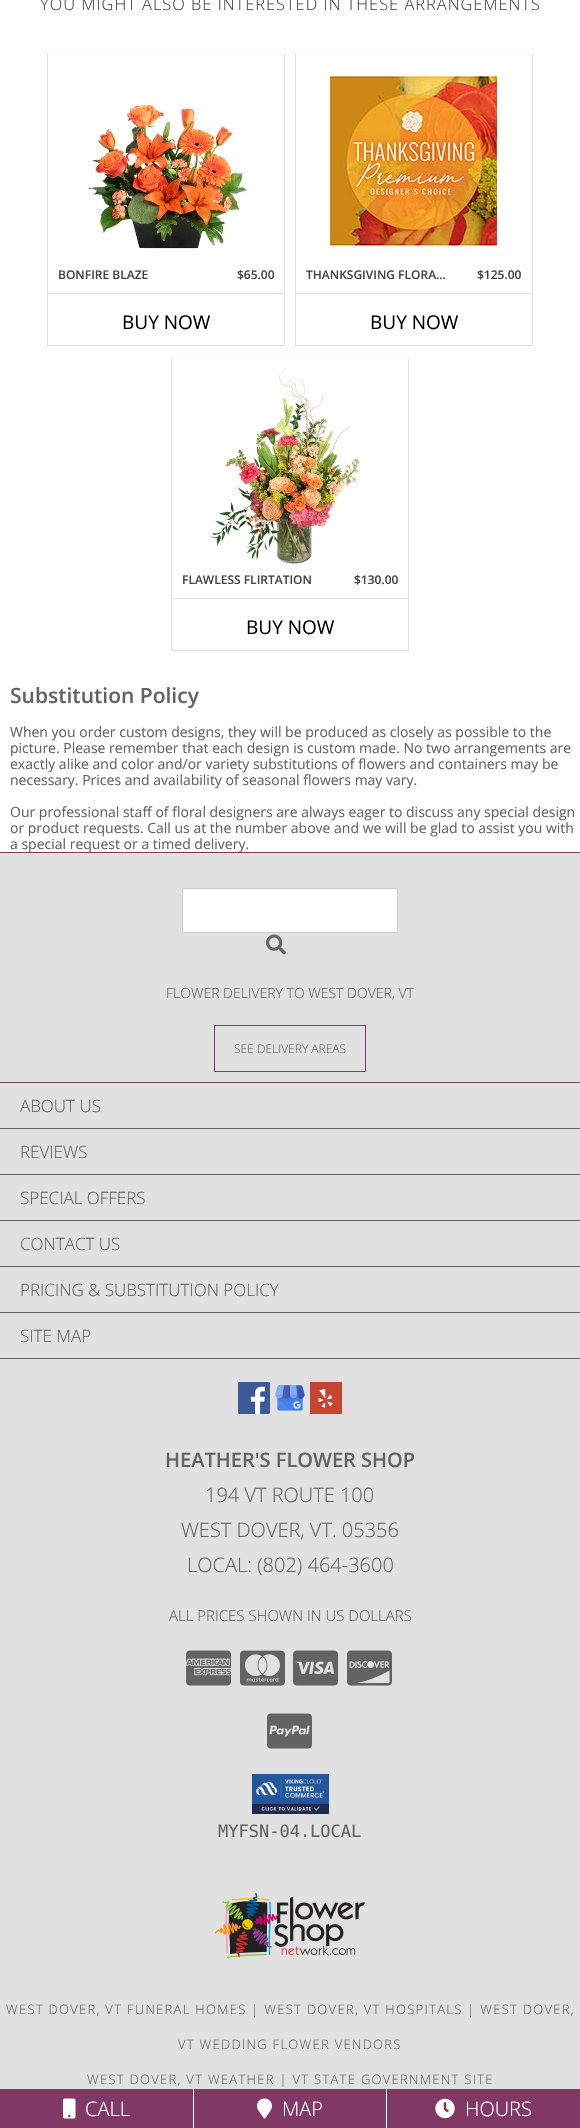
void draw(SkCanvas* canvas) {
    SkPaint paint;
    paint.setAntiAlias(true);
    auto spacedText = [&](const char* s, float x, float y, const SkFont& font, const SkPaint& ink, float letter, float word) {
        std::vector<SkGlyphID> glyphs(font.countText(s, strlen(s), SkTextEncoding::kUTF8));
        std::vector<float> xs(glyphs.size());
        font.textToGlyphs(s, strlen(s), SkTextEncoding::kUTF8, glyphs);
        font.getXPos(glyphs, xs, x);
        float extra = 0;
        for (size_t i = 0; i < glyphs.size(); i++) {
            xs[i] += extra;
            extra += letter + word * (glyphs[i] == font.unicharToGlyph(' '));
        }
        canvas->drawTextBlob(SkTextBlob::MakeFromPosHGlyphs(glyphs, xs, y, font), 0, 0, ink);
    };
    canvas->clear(0xFFFFFFFF);
    SkFont font1(fontMgr->matchFamilyStyle("Open Sans", SkFontStyle(300, SkFontStyle::kNormal_Width, SkFontStyle::kUpright_Slant)), 16.4f);
    font1.setSubpixel(true);
    paint.setColor(0xFF444444);
    spacedText("YOU MIGHT ALSO BE INTERESTED IN THESE ARRANGEMENTS", 40, 10, font1, paint, 1, 0);
    paint.setColor(0xFFF9F9F9);
    canvas->drawRect(SkRect::MakeXYWH(47, 54, 238, 1), paint);
    paint.setColor(0xFFE2DEDD);
    canvas->drawRect(SkRect::MakeXYWH(284, 54, 1, 292), paint);
    canvas->drawRect(SkRect::MakeXYWH(47, 345, 238, 1), paint);
    canvas->drawRect(SkRect::MakeXYWH(47, 54, 1, 292), paint);
    canvas->drawImageRect(SkImages::DeferredFromEncodedData(SkData::MakeFromFileName("img1.png")), SkRect::MakeXYWH(88, 103, 160, 146), SkSamplingOptions());
    SkFont font2(fontMgr->matchFamilyStyle("Open Sans", SkFontStyle(600, SkFontStyle::kNormal_Width, SkFontStyle::kUpright_Slant)), 12);
    font2.setSubpixel(true);
    paint.setColor(0xFF444444);
    canvas->drawString("BONFIRE BLAZE", 58, 279, font2, paint);
    canvas->drawString("$65.00", 237, 279, font2, paint);
    paint.setColor(0xFFE2DEDD);
    canvas->drawRect(SkRect::MakeXYWH(48, 293, 236, 1), paint);
    SkFont font3(fontMgr->matchFamilyStyle("Open Sans", SkFontStyle::Normal()), 19);
    font3.setSubpixel(true);
    paint.setColor(0xFF000000);
    canvas->drawString("BUY NOW", 122, 329, font3, paint);
    paint.setColor(0xFFF9F9F9);
    canvas->drawRect(SkRect::MakeXYWH(295, 54, 238, 1), paint);
    paint.setColor(0xFFE2DEDD);
    canvas->drawRect(SkRect::MakeXYWH(532, 54, 1, 292), paint);
    canvas->drawRect(SkRect::MakeXYWH(295, 345, 238, 1), paint);
    canvas->drawRect(SkRect::MakeXYWH(295, 54, 1, 292), paint);
    canvas->drawImageRect(SkImages::DeferredFromEncodedData(SkData::MakeFromFileName("img2.png")), SkRect::MakeXYWH(330, 75, 167, 176), SkSamplingOptions());
    paint.setColor(0xFF444444);
    canvas->drawString("THANKSGIVING FLORA…", 306, 279, font2, paint);
    canvas->drawString("$125.00", 477, 279, font2, paint);
    paint.setColor(0xFFE2DEDD);
    canvas->drawRect(SkRect::MakeXYWH(296, 293, 236, 1), paint);
    paint.setColor(0xFF000000);
    canvas->drawString("BUY NOW", 370, 329, font3, paint);
    paint.setColor(0xFFF9F9F9);
    canvas->drawRect(SkRect::MakeXYWH(171, 359, 238, 1), paint);
    paint.setColor(0xFFE2DEDD);
    canvas->drawRect(SkRect::MakeXYWH(408, 359, 1, 292), paint);
    canvas->drawRect(SkRect::MakeXYWH(171, 650, 238, 1), paint);
    canvas->drawRect(SkRect::MakeXYWH(171, 359, 1, 292), paint);
    canvas->drawImageRect(SkImages::DeferredFromEncodedData(SkData::MakeFromFileName("img3.png")), SkRect::MakeXYWH(210, 367, 150, 197), SkSamplingOptions());
    paint.setColor(0xFF444444);
    canvas->drawString("FLAWLESS FLIRTATION", 182, 584, font2, paint);
    canvas->drawString("$130.00", 354, 584, font2, paint);
    paint.setColor(0xFFE2DEDD);
    canvas->drawRect(SkRect::MakeXYWH(172, 598, 236, 1), paint);
    paint.setColor(0xFF000000);
    canvas->drawString("BUY NOW", 246, 634, font3, paint);
    SkFont font4(fontMgr->matchFamilyStyle("Open Sans", SkFontStyle(600, SkFontStyle::kNormal_Width, SkFontStyle::kUpright_Slant)), 21);
    font4.setSubpixel(true);
    paint.setColor(0xFF636363);
    canvas->drawString("Substitution Policy", 10, 703, font4, paint);
    SkFont font5(fontMgr->matchFamilyStyle("Open Sans", SkFontStyle::Normal()), 14);
    font5.setSubpixel(true);
    canvas->drawString("When you order custom designs, they will be produced as closely as possible to the", 10, 737, font5, paint);
    canvas->drawString("picture. Please remember that each design is custom made. No two arrangements are", 10, 753, font5, paint);
    canvas->drawString("exactly alike and color and/or variety substitutions of flowers and containers may be", 10, 769, font5, paint);
    canvas->drawString("necessary. Prices and availability of seasonal flowers may vary.", 10, 785, font5, paint);
    canvas->drawString("Our professional staff of floral designers are always eager to discuss any special design", 10, 817, font5, paint);
    canvas->drawString("or product requests. Call us at the number above and we will be glad to assist you with", 10, 833, font5, paint);
    paint.setColor(0xFF803965);
    canvas->drawRect(SkRect::MakeXYWH(0, 852, 580, 1), paint);
    paint.setColor(0xFF636363);
    canvas->drawString("a special request or a timed delivery.", 10, 849, font5, paint);
    paint.setColor(0xFFE1E1E1);
    canvas->drawRect(SkRect::MakeXYWH(0, 853, 580, 229), paint);
    paint.setColor(0xFF803965);
    canvas->drawRect(SkRect::MakeXYWH(0, 1082, 580, 1), paint);
    paint.setColor(0xFFFFFFFF);
    canvas->drawRect(SkRect::MakeXYWH(182.5f, 888.5f, 215, 44), paint);
    paint.setStyle(SkPaint::kStroke_Style);
    paint.setStrokeWidth(1);
    paint.setColor(0xFFCCCCCC);
    canvas->drawRect(SkRect::MakeXYWH(182.5f, 888.5f, 215, 44), paint);
    canvas->drawImageRect(SkImages::DeferredFromEncodedData(SkData::MakeFromFileName("img4.png")), SkRect::MakeXYWH(266, 934, 20, 21), SkSamplingOptions());
    SkFont font6(fontMgr->matchFamilyStyle("Open Sans", SkFontStyle(300, SkFontStyle::kNormal_Width, SkFontStyle::kUpright_Slant)), 14);
    font6.setSubpixel(true);
    paint.setStyle(SkPaint::kFill_Style);
    paint.setColor(0xFF636363);
    canvas->drawString("FLOWER DELIVERY TO WEST DOVER, VT", 166, 998, font6, paint);
    paint.setStyle(SkPaint::kStroke_Style);
    paint.setColor(0xFF803965);
    canvas->drawRect(SkRect::MakeXYWH(214.5f, 1025.5f, 151, 46), paint);
    SkFont font7(fontMgr->matchFamilyStyle("Open Sans", SkFontStyle(300, SkFontStyle::kNormal_Width, SkFontStyle::kUpright_Slant)), 12);
    font7.setSubpixel(true);
    paint.setStyle(SkPaint::kFill_Style);
    paint.setColor(0xFF636363);
    canvas->drawString("SEE DELIVERY AREAS", 234, 1053, font7, paint);
    paint.setColor(0xFFE1E1E1);
    canvas->drawRect(SkRect::MakeXYWH(0, 1083, 580, 1006), paint);
    paint.setColor(0xFF636363);
    canvas->drawRect(SkRect::MakeXYWH(0, 1128, 580, 1), paint);
    SkFont font8(fontMgr->matchFamilyStyle("Open Sans", SkFontStyle(300, SkFontStyle::kNormal_Width, SkFontStyle::kUpright_Slant)), 17);
    font8.setSubpixel(true);
    canvas->drawString("ABOUT US", 20, 1112, font8, paint);
    canvas->drawRect(SkRect::MakeXYWH(0, 1174, 580, 1), paint);
    canvas->drawString("REVIEWS", 20, 1158, font8, paint);
    canvas->drawRect(SkRect::MakeXYWH(0, 1220, 580, 1), paint);
    canvas->drawString("SPECIAL OFFERS", 20, 1204, font8, paint);
    canvas->drawRect(SkRect::MakeXYWH(0, 1266, 580, 1), paint);
    canvas->drawString("CONTACT US", 20, 1250, font8, paint);
    canvas->drawRect(SkRect::MakeXYWH(0, 1312, 580, 1), paint);
    canvas->drawString("PRICING & SUBSTITUTION POLICY", 20, 1296, font8, paint);
    canvas->drawRect(SkRect::MakeXYWH(0, 1358, 580, 1), paint);
    canvas->drawString("SITE MAP", 20, 1342, font8, paint);
    canvas->drawImageRect(SkImages::DeferredFromEncodedData(SkData::MakeFromFileName("img5.png")), SkRect::MakeXYWH(238, 1382, 32, 32), SkSamplingOptions());
    canvas->drawImageRect(SkImages::DeferredFromEncodedData(SkData::MakeFromFileName("img6.png")), SkRect::MakeXYWH(275, 1385, 30, 26), SkSamplingOptions());
    canvas->drawImageRect(SkImages::DeferredFromEncodedData(SkData::MakeFromFileName("img7.png")), SkRect::MakeXYWH(310, 1382, 32, 32), SkSamplingOptions());
    SkFont font9(fontMgr->matchFamilyStyle("Open Sans", SkFontStyle(600, SkFontStyle::kNormal_Width, SkFontStyle::kUpright_Slant)), 20);
    font9.setSubpixel(true);
    canvas->drawString("HEATHER'S FLOWER SHOP", 165, 1467, font9, paint);
    SkFont font10(fontMgr->matchFamilyStyle("Open Sans", SkFontStyle(300, SkFontStyle::kNormal_Width, SkFontStyle::kUpright_Slant)), 20);
    font10.setSubpixel(true);
    canvas->drawString("194 VT ROUTE 100", 205, 1502, font10, paint);
    canvas->drawString("WEST DOVER, VT. 05356", 181, 1537, font10, paint);
    canvas->drawString("LOCAL: (802) 464-3600", 187, 1572, font10, paint);
    SkFont font11(fontMgr->matchFamilyStyle("Open Sans", SkFontStyle(300, SkFontStyle::kNormal_Width, SkFontStyle::kUpright_Slant)), 15);
    font11.setSubpixel(true);
    canvas->drawString("ALL PRICES SHOWN IN US DOLLARS", 169, 1621, font11, paint);
    canvas->drawImageRect(SkImages::DeferredFromEncodedData(SkData::MakeFromFileName("img8.png")), SkRect::MakeXYWH(186, 1650, 46, 36), SkSamplingOptions());
    canvas->drawImageRect(SkImages::DeferredFromEncodedData(SkData::MakeFromFileName("img9.png")), SkRect::MakeXYWH(240, 1650, 45, 36), SkSamplingOptions());
    canvas->drawImageRect(SkImages::DeferredFromEncodedData(SkData::MakeFromFileName("img10.png")), SkRect::MakeXYWH(293, 1650, 45, 36), SkSamplingOptions());
    canvas->drawImageRect(SkImages::DeferredFromEncodedData(SkData::MakeFromFileName("img11.png")), SkRect::MakeXYWH(347, 1650, 45, 36), SkSamplingOptions());
    canvas->drawImageRect(SkImages::DeferredFromEncodedData(SkData::MakeFromFileName("img12.png")), SkRect::MakeXYWH(267, 1713, 45, 36), SkSamplingOptions());
    canvas->drawImageRect(SkImages::DeferredFromEncodedData(SkData::MakeFromFileName("img13.png")), SkRect::MakeXYWH(252, 1774, 77, 40), SkSamplingOptions());
    SkFont font12(fontMgr->matchFamilyStyle("DejaVu Sans Mono", SkFontStyle::Normal()), 17);
    font12.setSubpixel(true);
    canvas->drawString("MYFSN-04.LOCAL", 218, 1837, font12, paint);
    canvas->drawImageRect(SkImages::DeferredFromEncodedData(SkData::MakeFromFileName("img14.png")), SkRect::MakeXYWH(215, 1893, 150, 65), SkSamplingOptions());
    SkFont font13(fontMgr->matchFamilyStyle("Open Sans", SkFontStyle(300, SkFontStyle::kNormal_Width, SkFontStyle::kUpright_Slant)), 13);
    font13.setSubpixel(true);
    spacedText("WEST DOVER, VT FUNERAL HOMES | WEST DOVER, VT HOSPITALS | WEST DOVER,", 6, 2014, font13, paint, 1.3f, 0);
    spacedText("VT WEDDING FLOWER VENDORS", 178, 2049, font13, paint, 1.3f, 0);
    spacedText("WEST DOVER, VT WEATHER | VT STATE GOVERNMENT SITE", 87, 2084, font13, paint, 1.3f, 0);
    paint.setColor(0xFF803965);
    canvas->drawRect(SkRect::MakeXYWH(0, 2089, 193, 39), paint);
    canvas->drawImageRect(SkImages::DeferredFromEncodedData(SkData::MakeFromFileName("img15.png")), SkRect::MakeXYWH(63, 2098, 13, 21), SkSamplingOptions());
    paint.setColor(0xFFFFFFFF);
    canvas->drawString("CALL", 85, 2116, font10, paint);
    paint.setColor(0xFF803965);
    canvas->drawRect(SkRect::MakeXYWH(194, 2089, 192, 39), paint);
    canvas->drawImageRect(SkImages::DeferredFromEncodedData(SkData::MakeFromFileName("img16.png")), SkRect::MakeXYWH(257, 2098, 15, 21), SkSamplingOptions());
    paint.setColor(0xFFFFFFFF);
    canvas->drawString("MAP", 282, 2116, font10, paint);
    paint.setColor(0xFF803965);
    canvas->drawRect(SkRect::MakeXYWH(387, 2089, 193, 39), paint);
    canvas->drawImageRect(SkImages::DeferredFromEncodedData(SkData::MakeFromFileName("img17.png")), SkRect::MakeXYWH(435, 2098, 20, 21), SkSamplingOptions());
    paint.setColor(0xFFFFFFFF);
    canvas->drawString("HOURS", 465, 2116, font10, paint);
}
